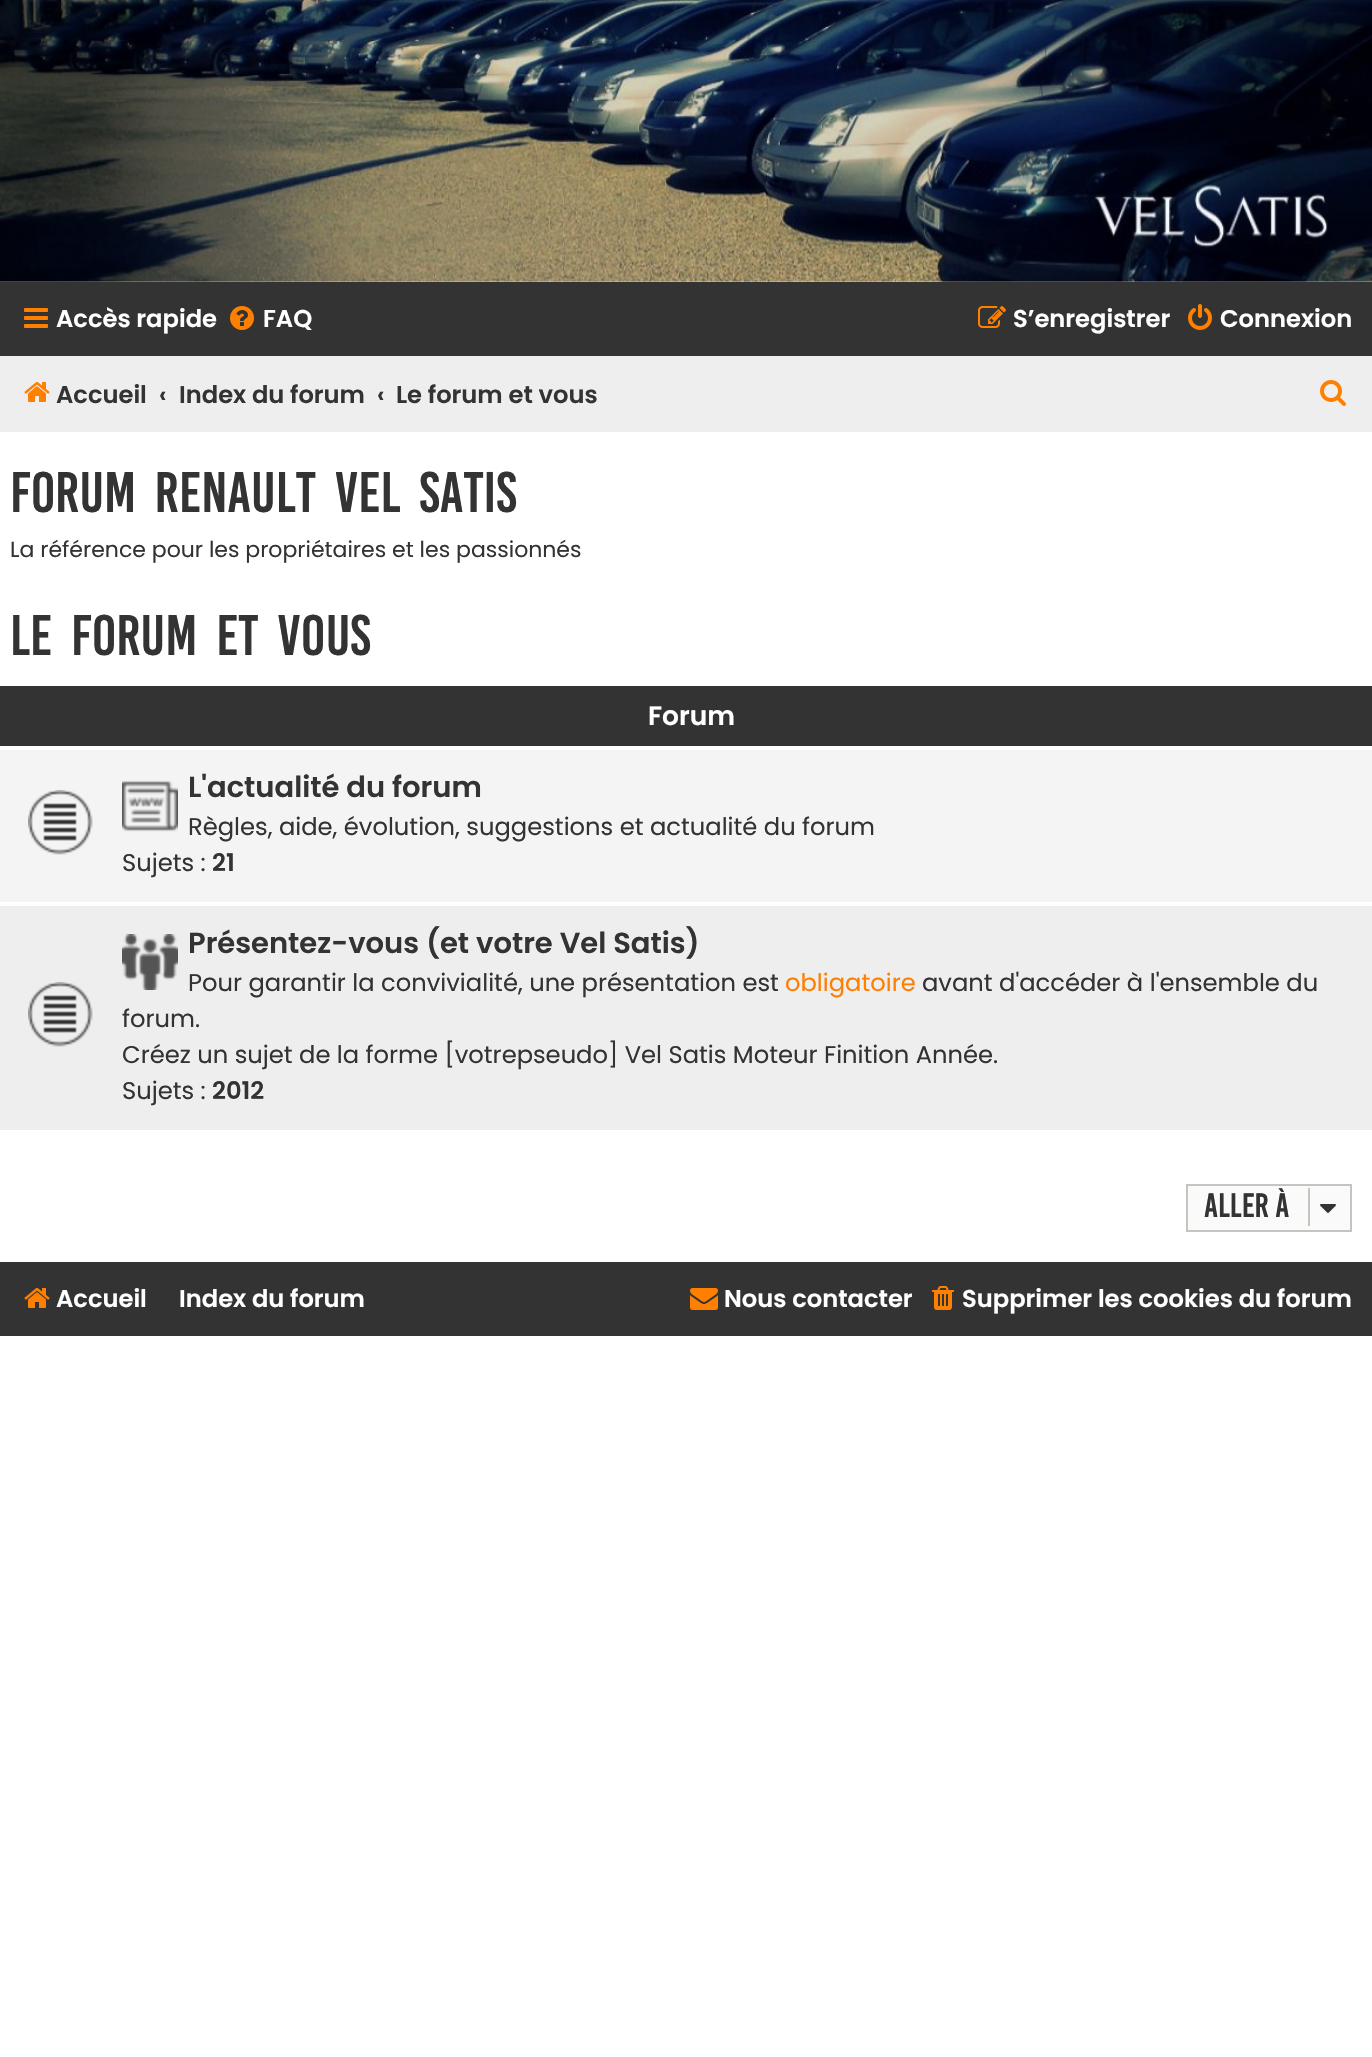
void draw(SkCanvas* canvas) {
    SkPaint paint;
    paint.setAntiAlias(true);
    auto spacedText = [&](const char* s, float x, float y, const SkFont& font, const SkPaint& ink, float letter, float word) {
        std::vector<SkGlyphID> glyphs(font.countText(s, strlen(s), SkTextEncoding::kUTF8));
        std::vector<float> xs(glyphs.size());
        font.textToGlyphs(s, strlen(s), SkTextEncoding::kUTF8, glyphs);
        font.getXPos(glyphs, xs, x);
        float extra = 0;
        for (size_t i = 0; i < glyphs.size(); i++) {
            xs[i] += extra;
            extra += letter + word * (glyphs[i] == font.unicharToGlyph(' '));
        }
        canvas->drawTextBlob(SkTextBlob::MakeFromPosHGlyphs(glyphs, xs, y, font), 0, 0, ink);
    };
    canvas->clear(0xFFFFFFFF);
    canvas->drawImageRect(SkImages::DeferredFromEncodedData(SkData::MakeFromFileName("img1.png")), SkRect::MakeXYWH(0, 0, 1372, 282), SkSamplingOptions());
    paint.setColor(0xFF333333);
    canvas->drawRect(SkRect::MakeXYWH(0, 282, 1372, 74), paint);
    canvas->drawImageRect(SkImages::DeferredFromEncodedData(SkData::MakeFromFileName("img2.png")), SkRect::MakeXYWH(24, 308, 24, 20), SkSamplingOptions());
    SkFont font1(fontMgr->matchFamilyStyle("Poppins", SkFontStyle(600, SkFontStyle::kNormal_Width, SkFontStyle::kUpright_Slant)), 24.2f);
    font1.setSubpixel(true);
    paint.setColor(0xFFFFFFFF);
    canvas->drawString("Accès rapide", 56, 327, font1, paint);
    canvas->drawImageRect(SkImages::DeferredFromEncodedData(SkData::MakeFromFileName("img3.png")), SkRect::MakeXYWH(230, 306, 24, 24), SkSamplingOptions());
    canvas->drawString("FAQ", 263, 327, font1, paint);
    canvas->drawImageRect(SkImages::DeferredFromEncodedData(SkData::MakeFromFileName("img4.png")), SkRect::MakeXYWH(978, 306, 28, 22), SkSamplingOptions());
    canvas->drawString("S’enregistrer", 1013, 327, font1, paint);
    canvas->drawImageRect(SkImages::DeferredFromEncodedData(SkData::MakeFromFileName("img5.png")), SkRect::MakeXYWH(1188, 304, 24, 26), SkSamplingOptions());
    canvas->drawString("Connexion", 1220, 327, font1, paint);
    paint.setColor(0xFFEEEEEE);
    canvas->drawRect(SkRect::MakeXYWH(0, 356, 1372, 76), paint);
    canvas->drawImageRect(SkImages::DeferredFromEncodedData(SkData::MakeFromFileName("img6.png")), SkRect::MakeXYWH(24, 382, 26, 20), SkSamplingOptions());
    paint.setColor(0xFF333333);
    canvas->drawString("Accueil", 56, 403, font1, paint);
    canvas->drawString("‹", 159, 403, font1, paint);
    canvas->drawString("Index du forum", 179, 403, font1, paint);
    canvas->drawString("‹", 377, 403, font1, paint);
    canvas->drawString("Le forum et vous", 396, 403, font1, paint);
    canvas->drawImageRect(SkImages::DeferredFromEncodedData(SkData::MakeFromFileName("img7.png")), SkRect::MakeXYWH(1320, 380, 26, 26), SkSamplingOptions());
    SkFont font2(fontMgr->matchFamilyStyle("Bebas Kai", SkFontStyle::Normal()), 44);
    font2.setSubpixel(true);
    spacedText("Forum Renault VEL SATIS", 10, 512, font2, paint, 0, 8);
    SkFont font3(fontMgr->matchFamilyStyle("Poppins", SkFontStyle::Normal()), 22);
    font3.setSubpixel(true);
    canvas->drawString("La référence pour les propriétaires et les passionnés", 10, 557, font3, paint);
    spacedText("Le forum et vous", 10, 655, font2, paint, 0, 8);
    canvas->drawRect(SkRect::MakeXYWH(0, 686, 1372, 60), paint);
    SkFont font4(fontMgr->matchFamilyStyle("Poppins", SkFontStyle(600, SkFontStyle::kNormal_Width, SkFontStyle::kUpright_Slant)), 26.5f);
    font4.setSubpixel(true);
    paint.setColor(0xFFFFFFFF);
    canvas->drawString("Forum", 648, 725, font4, paint);
    paint.setColor(0xFFEEEEEE);
    canvas->drawRect(SkRect::MakeXYWH(0, 906, 1372, 224), paint);
    paint.setColor(0xFFF4F4F4);
    canvas->drawRect(SkRect::MakeXYWH(0, 750, 1372, 152), paint);
    canvas->drawImageRect(SkImages::DeferredFromEncodedData(SkData::MakeFromFileName("img8.png")), SkRect::MakeXYWH(28, 790, 65, 65), SkSamplingOptions());
    canvas->drawImageRect(SkImages::DeferredFromEncodedData(SkData::MakeFromFileName("img9.png")), SkRect::MakeXYWH(122, 780, 56, 52), SkSamplingOptions());
    SkFont font5(fontMgr->matchFamilyStyle("Poppins", SkFontStyle(600, SkFontStyle::kNormal_Width, SkFontStyle::kUpright_Slant)), 29);
    font5.setSubpixel(true);
    paint.setColor(0xFF333333);
    canvas->drawString("L'actualité du forum", 188, 797, font5, paint);
    SkFont font6(fontMgr->matchFamilyStyle("Poppins", SkFontStyle::Normal()), 24.2f);
    font6.setSubpixel(true);
    canvas->drawString("Règles, aide, évolution, suggestions et actualité du forum", 188, 835, font6, paint);
    canvas->drawString("Sujets :", 122, 871, font6, paint);
    canvas->drawString("21", 212, 871, font1, paint);
    canvas->drawImageRect(SkImages::DeferredFromEncodedData(SkData::MakeFromFileName("img10.png")), SkRect::MakeXYWH(28, 982, 65, 65), SkSamplingOptions());
    canvas->drawImageRect(SkImages::DeferredFromEncodedData(SkData::MakeFromFileName("img11.png")), SkRect::MakeXYWH(122, 934, 56, 56), SkSamplingOptions());
    canvas->drawString("Présentez-vous (et votre Vel Satis)", 188, 953, font5, paint);
    canvas->drawString("avant d'accéder à l'ensemble du", 922, 991, font6, paint);
    canvas->drawString("Pour garantir la convivialité, une présentation est", 188, 991, font6, paint);
    paint.setColor(0xFFFF8000);
    canvas->drawString("obligatoire", 785, 991, font6, paint);
    paint.setColor(0xFF333333);
    canvas->drawString("forum.", 122, 1027, font6, paint);
    canvas->drawString("Créez un sujet de la forme [votrepseudo] Vel Satis Moteur Finition Année.", 122, 1063, font6, paint);
    canvas->drawString("Sujets :", 122, 1099, font6, paint);
    canvas->drawString("2012", 212, 1099, font1, paint);
    paint.setColor(0xFFFAFAFA);
    canvas->drawRect(SkRect::MakeXYWH(1187, 1185, 164, 46), paint);
    paint.setStyle(SkPaint::kStroke_Style);
    paint.setStrokeWidth(2);
    paint.setColor(0xFFC7C3BF);
    canvas->drawRect(SkRect::MakeXYWH(1187, 1185, 164, 46), paint);
    SkFont font7(fontMgr->matchFamilyStyle("Bebas Kai", SkFontStyle::Normal()), 26);
    font7.setSubpixel(true);
    paint.setStyle(SkPaint::kFill_Style);
    paint.setColor(0xFF333333);
    canvas->drawString("Aller à", 1204, 1217, font7, paint);
    paint.setColor(0xFFC7C3BF);
    canvas->drawRect(SkRect::MakeXYWH(1308, 1188, 2, 38), paint);
    canvas->drawImageRect(SkImages::DeferredFromEncodedData(SkData::MakeFromFileName("img12.png")), SkRect::MakeXYWH(1320, 1204, 16, 9), SkSamplingOptions());
    paint.setColor(0xFF333333);
    canvas->drawRect(SkRect::MakeXYWH(0, 1262, 1372, 74), paint);
    canvas->drawImageRect(SkImages::DeferredFromEncodedData(SkData::MakeFromFileName("img13.png")), SkRect::MakeXYWH(24, 1288, 26, 20), SkSamplingOptions());
    paint.setColor(0xFFFFFFFF);
    canvas->drawString("Accueil", 56, 1307, font1, paint);
    canvas->drawString("Index du forum", 179, 1307, font1, paint);
    canvas->drawImageRect(SkImages::DeferredFromEncodedData(SkData::MakeFromFileName("img14.png")), SkRect::MakeXYWH(690, 1288, 28, 22), SkSamplingOptions());
    canvas->drawString("Nous contacter", 724, 1307, font1, paint);
    canvas->drawImageRect(SkImages::DeferredFromEncodedData(SkData::MakeFromFileName("img15.png")), SkRect::MakeXYWH(932, 1286, 22, 24), SkSamplingOptions());
    canvas->drawString("Supprimer les cookies du forum", 962, 1307, font1, paint);
}
